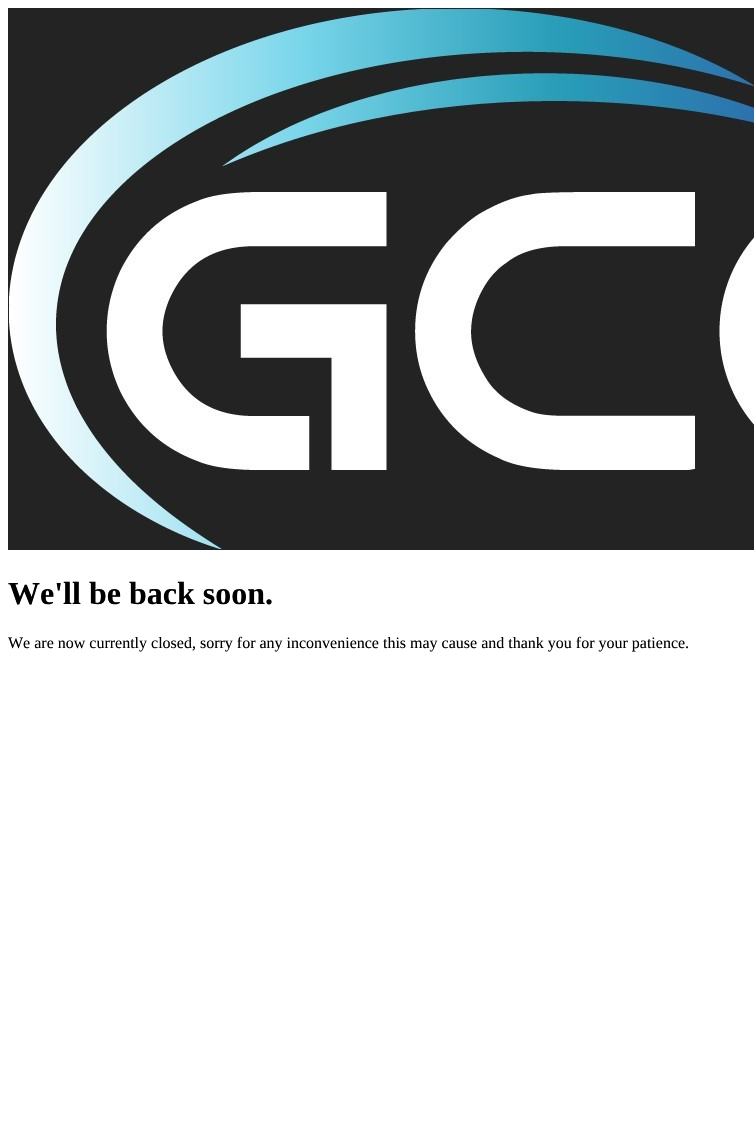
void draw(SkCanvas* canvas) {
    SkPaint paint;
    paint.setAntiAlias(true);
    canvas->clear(0xFFFFFFFF);
    canvas->drawImageRect(SkImages::DeferredFromEncodedData(SkData::MakeFromFileName("img1.png")), SkRect::MakeXYWH(8, 8, 746, 542), SkSamplingOptions());
    SkFont font1(fontMgr->matchFamilyStyle("Liberation Serif", SkFontStyle::Bold()), 32);
    font1.setSubpixel(true);
    paint.setColor(0xFF000000);
    canvas->drawString("We'll be back soon.", 8, 604, font1, paint);
    SkFont font2(fontMgr->matchFamilyStyle("Liberation Serif", SkFontStyle::Normal()), 16);
    font2.setSubpixel(true);
    canvas->drawString("We are now currently closed, sorry for any inconvenience this may cause and thank you for your patience.", 8, 648, font2, paint);
}
